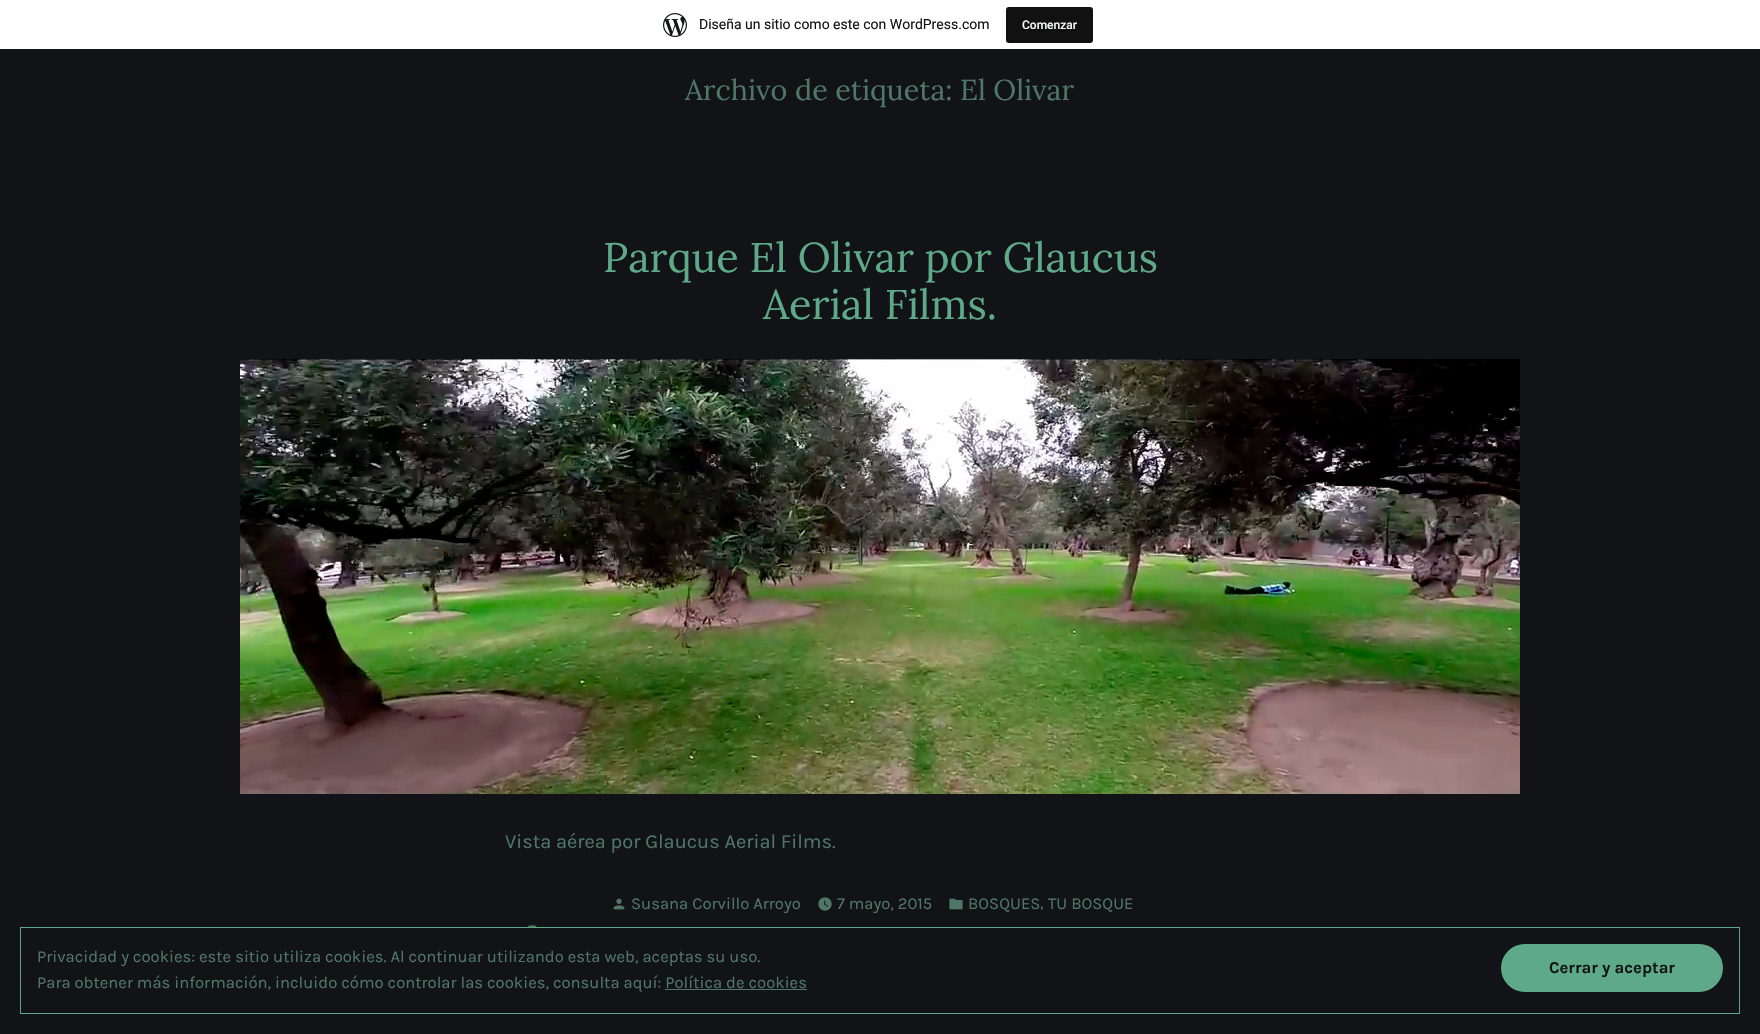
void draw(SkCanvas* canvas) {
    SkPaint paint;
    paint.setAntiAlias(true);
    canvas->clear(0xFF121316);
    paint.setColor(0xFFFFFFFF);
    canvas->drawRect(SkRect::MakeXYWH(0, 0, 1760, 49), paint);
    canvas->drawImageRect(SkImages::DeferredFromEncodedData(SkData::MakeFromFileName("img1.png")), SkRect::MakeXYWH(663, 13, 24, 24), SkSamplingOptions());
    SkFont font1(fontMgr->matchFamilyStyle("Roboto", SkFontStyle::Normal()), 14);
    font1.setSubpixel(true);
    paint.setColor(0xFF121316);
    canvas->drawString("Diseña un sitio como este con WordPress.com", 699, 29, font1, paint);
    paint.setColor(0xFF111111);
    canvas->drawRoundRect(SkRect::MakeXYWH(1006, 7, 87, 36), 3, 3, paint);
    SkFont font2(fontMgr->matchFamilyStyle("Roboto", SkFontStyle(500, SkFontStyle::kNormal_Width, SkFontStyle::kUpright_Slant)), 12);
    font2.setSubpixel(true);
    paint.setColor(0xFFF6F7F7);
    canvas->drawString("Comenzar", 1022, 29, font2, paint);
    SkFont font3(fontMgr->matchFamilyStyle("Lora", SkFontStyle::Normal()), 28.75f);
    font3.setSubpixel(true);
    paint.setColor(0xFF4F7766);
    canvas->drawString("Archivo de etiqueta: El Olivar", 685, 100, font3, paint);
    SkFont font4(fontMgr->matchFamilyStyle("Lora", SkFontStyle::Normal()), 41.5f);
    font4.setSubpixel(true);
    paint.setColor(0xFF5EAA88);
    canvas->drawString("Parque El Olivar por Glaucus", 603, 272, font4, paint);
    canvas->drawString("Aerial Films.", 763, 319, font4, paint);
    canvas->drawImageRect(SkImages::DeferredFromEncodedData(SkData::MakeFromFileName("img2.png")), SkRect::MakeXYWH(240, 359, 1280, 435), SkSamplingOptions());
    SkFont font5(fontMgr->matchFamilyStyle("Karla", SkFontStyle::Normal()), 20);
    font5.setSubpixel(true);
    paint.setColor(0xFF4F7766);
    canvas->drawString("Vista aérea por Glaucus Aerial Films.", 505, 848, font5, paint);
    canvas->drawImageRect(SkImages::DeferredFromEncodedData(SkData::MakeFromFileName("img3.png")), SkRect::MakeXYWH(613, 898, 12, 12), SkSamplingOptions());
    SkFont font6(fontMgr->matchFamilyStyle("Karla", SkFontStyle::Normal()), 16.65f);
    font6.setSubpixel(true);
    canvas->drawString("Susana Corvillo Arroyo", 631, 909, font6, paint);
    canvas->drawImageRect(SkImages::DeferredFromEncodedData(SkData::MakeFromFileName("img4.png")), SkRect::MakeXYWH(818, 897, 14, 14), SkSamplingOptions());
    canvas->drawString("7 mayo, 2015", 837, 909, font6, paint);
    canvas->drawImageRect(SkImages::DeferredFromEncodedData(SkData::MakeFromFileName("img5.png")), SkRect::MakeXYWH(949, 898, 14, 12), SkSamplingOptions());
    canvas->drawString("BOSQUES", 968, 909, font6, paint);
    canvas->drawString(",", 1040, 908, font6, paint);
    canvas->drawString("TU BOSQUE", 1048, 909, font6, paint);
    canvas->drawImageRect(SkImages::DeferredFromEncodedData(SkData::MakeFromFileName("img6.png")), SkRect::MakeXYWH(528, 925, 9, 2), SkSamplingOptions());
    paint.setStyle(SkPaint::kStroke_Style);
    paint.setStrokeWidth(1);
    paint.setColor(0xFF5EAA88);
    canvas->drawRect(SkRect::MakeXYWH(20.5f, 927.5f, 1719, 86), paint);
    paint.setStyle(SkPaint::kFill_Style);
    paint.setColor(0xFF4F7766);
    canvas->drawString("Privacidad y cookies: este sitio utiliza cookies. Al continuar utilizando esta web, aceptas su uso.", 37, 962, font6, paint);
    paint.setColor(0xFF5EAA88);
    canvas->drawRoundRect(SkRect::MakeXYWH(1501, 944, 222, 48), 24, 24, paint);
    SkFont font7(fontMgr->matchFamilyStyle("Karla", SkFontStyle::Bold()), 16.65f);
    font7.setSubpixel(true);
    paint.setColor(0xFF121316);
    canvas->drawString("Cerrar y aceptar", 1549, 973, font7, paint);
    paint.setColor(0xFF4F7766);
    canvas->drawString("Para obtener más información, incluido cómo controlar las cookies, consulta aquí: Política de cookies", 37, 988, font6, paint);
    canvas->drawRect(SkRect::MakeXYWH(665, 989, 142, 1), paint);
}
